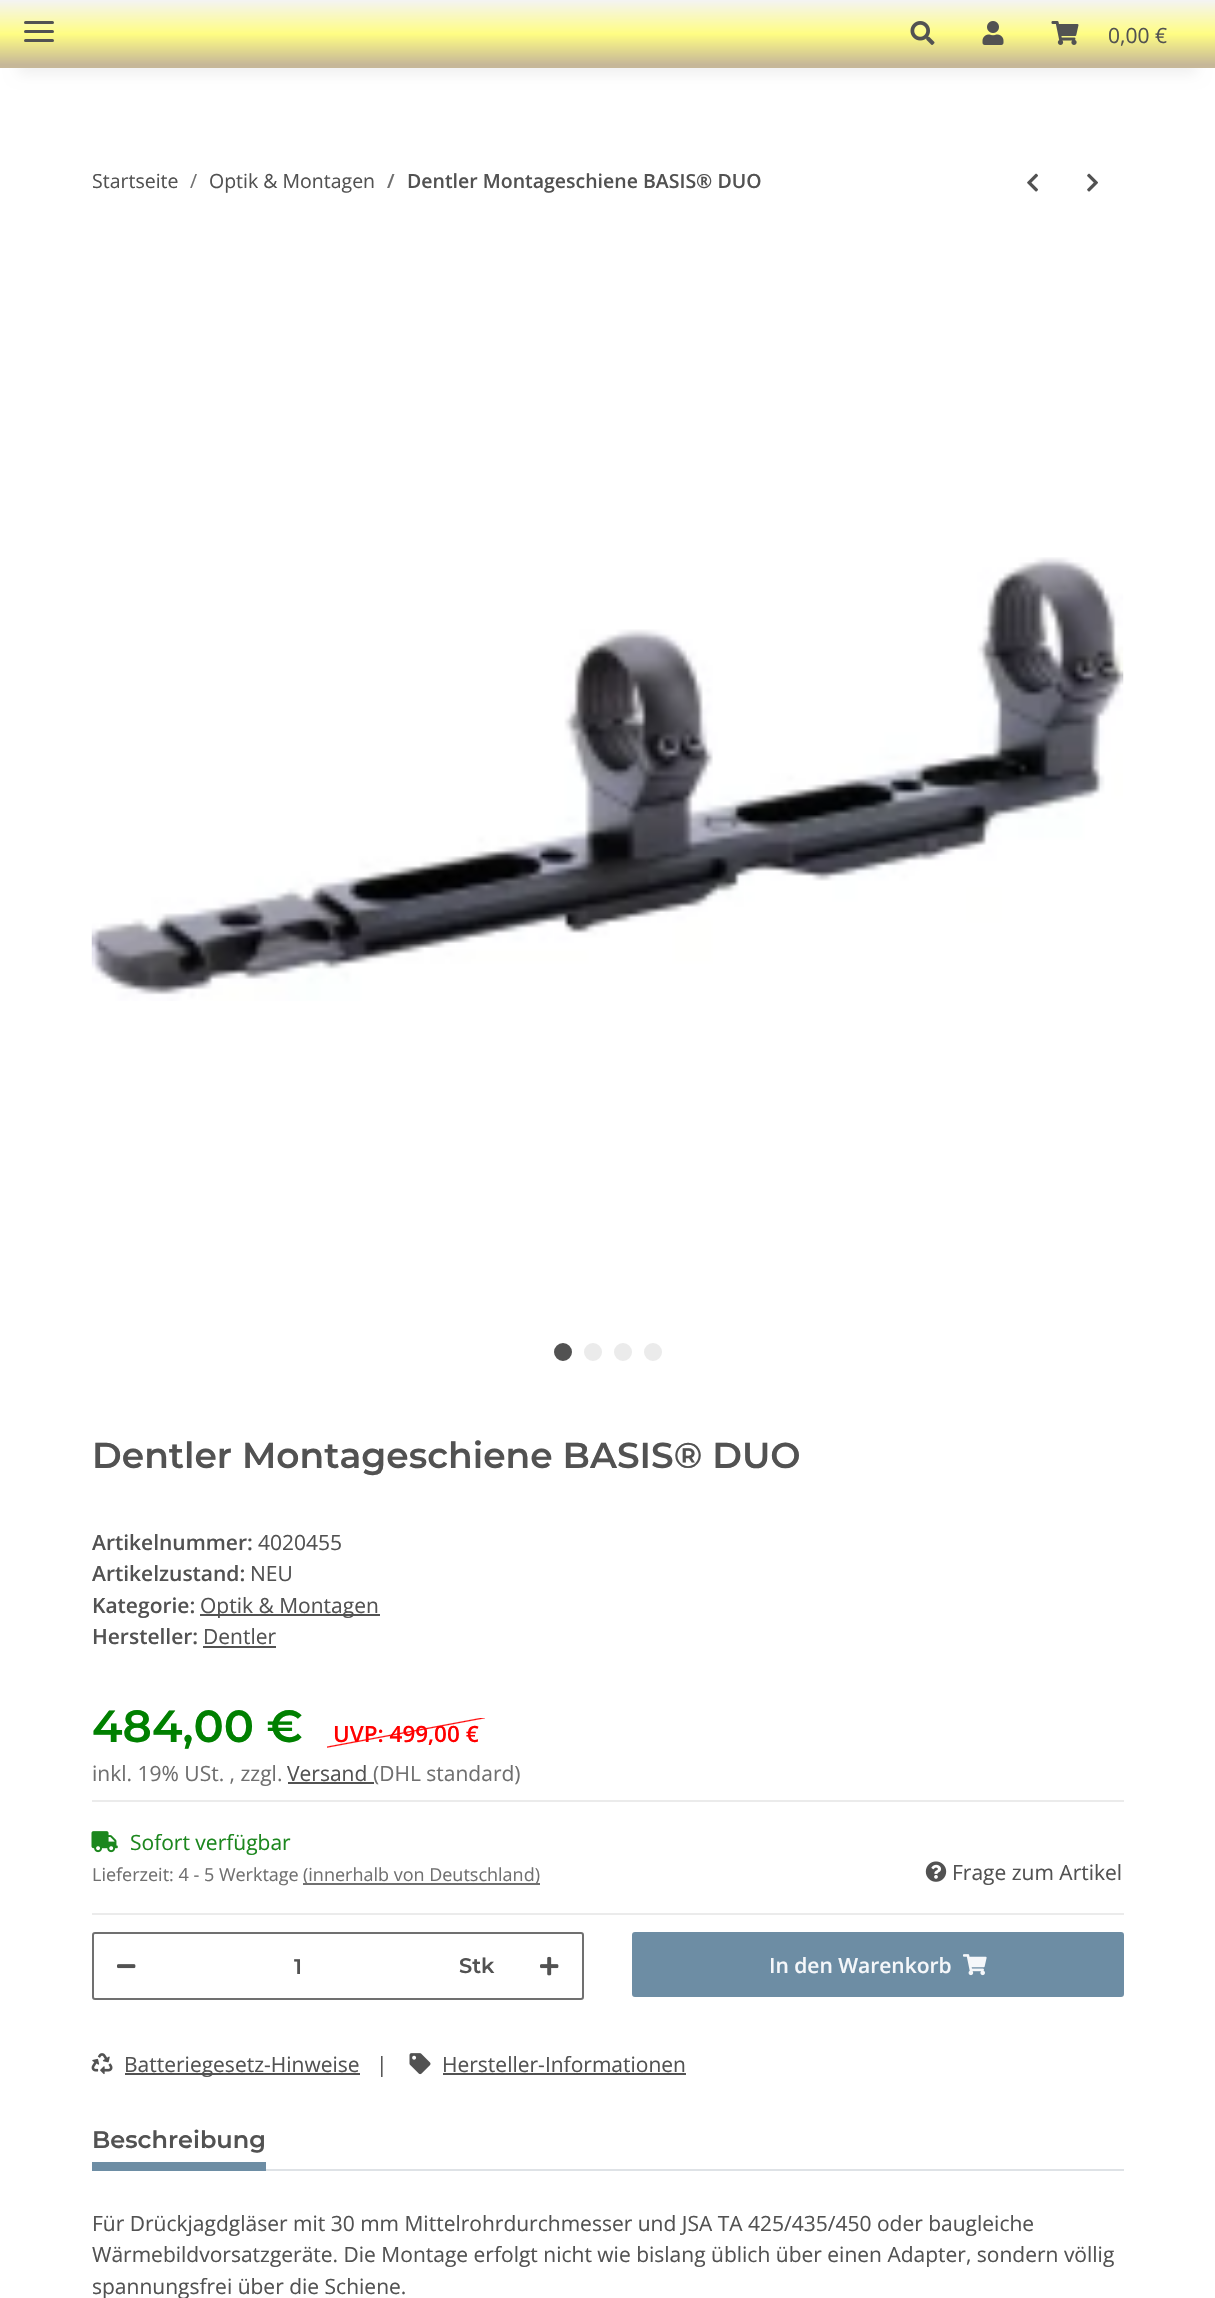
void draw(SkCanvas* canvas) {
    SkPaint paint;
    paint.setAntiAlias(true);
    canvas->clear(0xFFFFFFFF);
    paint.setColor(0x0F000000);
    paint.setMaskFilter(SkMaskFilter::MakeBlur(kNormal_SkBlurStyle, 7));
    canvas->drawRect(SkRect::MakeXYWH(18, 42, 1179, 32), paint);
    paint.setMaskFilter(nullptr);
    {
        const SkColor colors[] = {0xFFF4F4F4, 0xFFFFFD83, 0xFFC6B798};
        const float stops[] = {0, 0.5f, 0.95f};
        const SkPoint ends[] = {{608, 0}, {608, 68}};
        paint.setShader(SkGradientShader::MakeLinear(ends, colors, stops, 3, SkTileMode::kClamp));
        paint.setAlpha(255);
    }
    canvas->drawRect(SkRect::MakeXYWH(0, 0, 1215, 68), paint);
    paint.setShader(nullptr);
    paint.setColor(0xFF525252);
    canvas->drawRoundRect(SkRect::MakeXYWH(24, 30, 30, 3), 1.5f, 1.5f, paint);
    canvas->drawRoundRect(SkRect::MakeXYWH(24, 21, 30, 3), 1.5f, 1.5f, paint);
    canvas->drawRoundRect(SkRect::MakeXYWH(24, 39, 30, 3), 1.5f, 1.5f, paint);
    canvas->drawImageRect(SkImages::DeferredFromEncodedData(SkData::MakeFromFileName("img1.png")), SkRect::MakeXYWH(910, 21, 25, 24), SkSamplingOptions());
    canvas->drawImageRect(SkImages::DeferredFromEncodedData(SkData::MakeFromFileName("img2.png")), SkRect::MakeXYWH(982, 21, 22, 24), SkSamplingOptions());
    canvas->drawImageRect(SkImages::DeferredFromEncodedData(SkData::MakeFromFileName("img3.png")), SkRect::MakeXYWH(1051, 21, 28, 24), SkSamplingOptions());
    SkFont font1(fontMgr->matchFamilyStyle("Open Sans", SkFontStyle::Normal()), 21);
    font1.setSubpixel(true);
    canvas->drawString("0,00 €", 1108, 43, font1, paint);
    SkFont font2(fontMgr->matchFamilyStyle("Open Sans", SkFontStyle::Normal()), 19.5f);
    font2.setSubpixel(true);
    canvas->drawString("Startseite", 92, 188, font2, paint);
    paint.setColor(0xFF707070);
    canvas->drawString("/", 190, 188, font2, paint);
    paint.setColor(0xFF525252);
    canvas->drawString("Optik & Montagen", 209, 188, font2, paint);
    SkFont font3(fontMgr->matchFamilyStyle("Open Sans", SkFontStyle(600, SkFontStyle::kNormal_Width, SkFontStyle::kUpright_Slant)), 19.5f);
    font3.setSubpixel(true);
    paint.setColor(0xFF707070);
    canvas->drawString("/", 387, 188, font3, paint);
    paint.setColor(0xFF525252);
    canvas->drawString("Dentler Montageschiene BASIS® DUO", 407, 188, font3, paint);
    canvas->drawImageRect(SkImages::DeferredFromEncodedData(SkData::MakeFromFileName("img4.png")), SkRect::MakeXYWH(1027, 173, 11, 19), SkSamplingOptions());
    canvas->drawImageRect(SkImages::DeferredFromEncodedData(SkData::MakeFromFileName("img5.png")), SkRect::MakeXYWH(1087, 173, 11, 19), SkSamplingOptions());
    canvas->drawImageRect(SkImages::DeferredFromEncodedData(SkData::MakeFromFileName("img6.png")), SkRect::MakeXYWH(91, 557, 1033, 444), SkSamplingOptions());
    canvas->drawCircle(563, 1352, 7.5f, paint);
    paint.setStyle(SkPaint::kStroke_Style);
    paint.setStrokeWidth(3);
    canvas->drawCircle(563, 1352, 7.5f, paint);
    paint.setStyle(SkPaint::kFill_Style);
    paint.setColor(0xFFEBEBEB);
    canvas->drawCircle(593, 1352, 7.5f, paint);
    paint.setStyle(SkPaint::kStroke_Style);
    canvas->drawCircle(593, 1352, 7.5f, paint);
    paint.setStyle(SkPaint::kFill_Style);
    canvas->drawCircle(623, 1352, 7.5f, paint);
    paint.setStyle(SkPaint::kStroke_Style);
    canvas->drawCircle(623, 1352, 7.5f, paint);
    paint.setStyle(SkPaint::kFill_Style);
    canvas->drawCircle(653, 1352, 7.5f, paint);
    paint.setStyle(SkPaint::kStroke_Style);
    canvas->drawCircle(653, 1352, 7.5f, paint);
    SkFont font4(fontMgr->matchFamilyStyle("Montserrat", SkFontStyle(600, SkFontStyle::kNormal_Width, SkFontStyle::kUpright_Slant)), 36);
    font4.setSubpixel(true);
    paint.setStyle(SkPaint::kFill_Style);
    paint.setColor(0xFF525252);
    canvas->drawString("Dentler Montageschiene BASIS® DUO", 92, 1468, font4, paint);
    SkFont font5(fontMgr->matchFamilyStyle("Open Sans", SkFontStyle(600, SkFontStyle::kNormal_Width, SkFontStyle::kUpright_Slant)), 21);
    font5.setSubpixel(true);
    canvas->drawString("Artikelnummer:", 92, 1550, font5, paint);
    canvas->drawString("4020455", 258, 1550, font1, paint);
    canvas->drawString("Artikelzustand:", 92, 1581, font5, paint);
    canvas->drawString("NEU", 250, 1581, font1, paint);
    canvas->drawString("Kategorie:", 92, 1613, font5, paint);
    canvas->drawRect(SkRect::MakeXYWH(200, 1614, 180, 2), paint);
    canvas->drawString("Optik & Montagen", 200, 1613, font1, paint);
    canvas->drawString("Hersteller:", 92, 1644, font5, paint);
    canvas->drawString("Dentler", 203, 1644, font1, paint);
    canvas->drawRect(SkRect::MakeXYWH(203, 1646, 73, 2), paint);
    SkFont font6(fontMgr->matchFamilyStyle("Montserrat", SkFontStyle(600, SkFontStyle::kNormal_Width, SkFontStyle::kUpright_Slant)), 45);
    font6.setSubpixel(true);
    paint.setColor(0xFF008000);
    canvas->drawString("484,00 €", 92, 1742, font6, paint);
    {
        const SkColor colors[] = {0xFFFFFFFF, 0xFFFFFFFF, 0xFFFF0000, 0xFFFFFFFF, 0xFFFFFFFF};
        const float stops[] = {0, 0.48f, 0.5f, 0.52f, 1};
        const SkPoint ends[] = {{400, 1703}, {411, 1762}};
        paint.setShader(SkGradientShader::MakeLinear(ends, colors, stops, 5, SkTileMode::kClamp));
        paint.setAlpha(255);
    }
    canvas->drawRect(SkRect::MakeXYWH(327, 1718, 158, 30), paint);
    SkFont font7(fontMgr->matchFamilyStyle("Open Sans", SkFontStyle(600, SkFontStyle::kNormal_Width, SkFontStyle::kUpright_Slant)), 22.5f);
    font7.setSubpixel(true);
    paint.setShader(nullptr);
    paint.setColor(0xFFFF0000);
    canvas->drawString("UVP: 499,00 €", 333, 1742, font7, paint);
    paint.setColor(0xFF707070);
    canvas->drawString("inkl. 19% USt. , zzgl.", 92, 1781, font1, paint);
    paint.setColor(0xFF525252);
    canvas->drawString("Versand", 287, 1781, font1, paint);
    canvas->drawRect(SkRect::MakeXYWH(288, 1782, 86, 2), paint);
    paint.setColor(0xFF707070);
    canvas->drawString("(DHL standard)", 373, 1781, font1, paint);
    paint.setColor(0xFFEBEBEB);
    canvas->drawRect(SkRect::MakeXYWH(92, 1800, 1032, 2), paint);
    canvas->drawRect(SkRect::MakeXYWH(92, 1913, 1032, 2), paint);
    canvas->drawImageRect(SkImages::DeferredFromEncodedData(SkData::MakeFromFileName("img7.png")), SkRect::MakeXYWH(91, 1831, 27, 22), SkSamplingOptions());
    paint.setColor(0xFF1C871E);
    canvas->drawString("Sofort verfügbar", 130, 1850, font1, paint);
    SkFont font8(fontMgr->matchFamilyStyle("Open Sans", SkFontStyle::Normal()), 18);
    font8.setSubpixel(true);
    paint.setColor(0xFF707070);
    canvas->drawString("Lieferzeit: 4 - 5 Werktage", 92, 1881, font8, paint);
    canvas->drawRect(SkRect::MakeXYWH(303, 1883, 237, 2), paint);
    canvas->drawString("(innerhalb von Deutschland)", 303, 1881, font8, paint);
    canvas->drawImageRect(SkImages::DeferredFromEncodedData(SkData::MakeFromFileName("img8.png")), SkRect::MakeXYWH(925, 1861, 22, 21), SkSamplingOptions());
    paint.setColor(0xFF525252);
    canvas->drawString("Frage zum Artikel", 952, 1880, font1, paint);
    paint.setStyle(SkPaint::kStroke_Style);
    paint.setStrokeWidth(2);
    paint.setColor(0xFF707070);
    canvas->drawRoundRect(SkRect::MakeXYWH(93, 1933, 490, 66), 2, 2, paint);
    canvas->drawImageRect(SkImages::DeferredFromEncodedData(SkData::MakeFromFileName("img9.png")), SkRect::MakeXYWH(117, 1964, 19, 5), SkSamplingOptions());
    SkFont font9(fontMgr->matchFamilyStyle("Montserrat", SkFontStyle(600, SkFontStyle::kNormal_Width, SkFontStyle::kUpright_Slant)), 21);
    font9.setSubpixel(true);
    paint.setStyle(SkPaint::kFill_Style);
    paint.setColor(0xFF525252);
    canvas->drawString("1", 294, 1974, font9, paint);
    canvas->drawString("Stk", 459, 1973, font9, paint);
    canvas->drawImageRect(SkImages::DeferredFromEncodedData(SkData::MakeFromFileName("img10.png")), SkRect::MakeXYWH(540, 1956, 19, 20), SkSamplingOptions());
    paint.setColor(0xFF6D8DA4);
    canvas->drawRoundRect(SkRect::MakeXYWH(633, 1933, 490, 63), 2, 2, paint);
    paint.setStyle(SkPaint::kStroke_Style);
    canvas->drawRoundRect(SkRect::MakeXYWH(633, 1933, 490, 63), 2, 2, paint);
    paint.setStyle(SkPaint::kFill_Style);
    paint.setColor(0xFFF5F7FA);
    canvas->drawString("In den Warenkorb", 769, 1973, font5, paint);
    canvas->drawImageRect(SkImages::DeferredFromEncodedData(SkData::MakeFromFileName("img11.png")), SkRect::MakeXYWH(963, 1954, 24, 22), SkSamplingOptions());
    canvas->drawImageRect(SkImages::DeferredFromEncodedData(SkData::MakeFromFileName("img12.png")), SkRect::MakeXYWH(91, 2053, 22, 22), SkSamplingOptions());
    paint.setColor(0xFF525252);
    canvas->drawRect(SkRect::MakeXYWH(125, 2073, 235, 2), paint);
    canvas->drawString("Batteriegesetz-Hinweise", 124, 2072, font1, paint);
    canvas->drawString("|", 376, 2072, font1, paint);
    canvas->drawImageRect(SkImages::DeferredFromEncodedData(SkData::MakeFromFileName("img13.png")), SkRect::MakeXYWH(409, 2053, 22, 22), SkSamplingOptions());
    canvas->drawString("Hersteller-Informationen", 442, 2072, font1, paint);
    canvas->drawRect(SkRect::MakeXYWH(443, 2073, 243, 2), paint);
    paint.setColor(0xFFDEE2E6);
    canvas->drawRect(SkRect::MakeXYWH(266, 2169, 858, 2), paint);
    SkFont font10(fontMgr->matchFamilyStyle("Montserrat", SkFontStyle(600, SkFontStyle::kNormal_Width, SkFontStyle::kUpright_Slant)), 24);
    font10.setSubpixel(true);
    paint.setColor(0xFF525252);
    canvas->drawString("Beschreibung", 92, 2148, font10, paint);
    paint.setColor(0xFF6D8DA4);
    canvas->drawRect(SkRect::MakeXYWH(92, 2162, 174, 9), paint);
    paint.setColor(0xFF525252);
    canvas->drawString("Für Drückjagdgläser mit 30 mm Mittelrohrdurchmesser und JSA TA 425/435/450 oder baugleiche", 92, 2231, font1, paint);
    canvas->drawString("Wärmebildvorsatzgeräte. Die Montage erfolgt nicht wie bislang üblich über einen Adapter, sondern völlig", 92, 2262, font1, paint);
    canvas->drawString("spannungsfrei über die Schiene.", 92, 2294, font1, paint);
}
